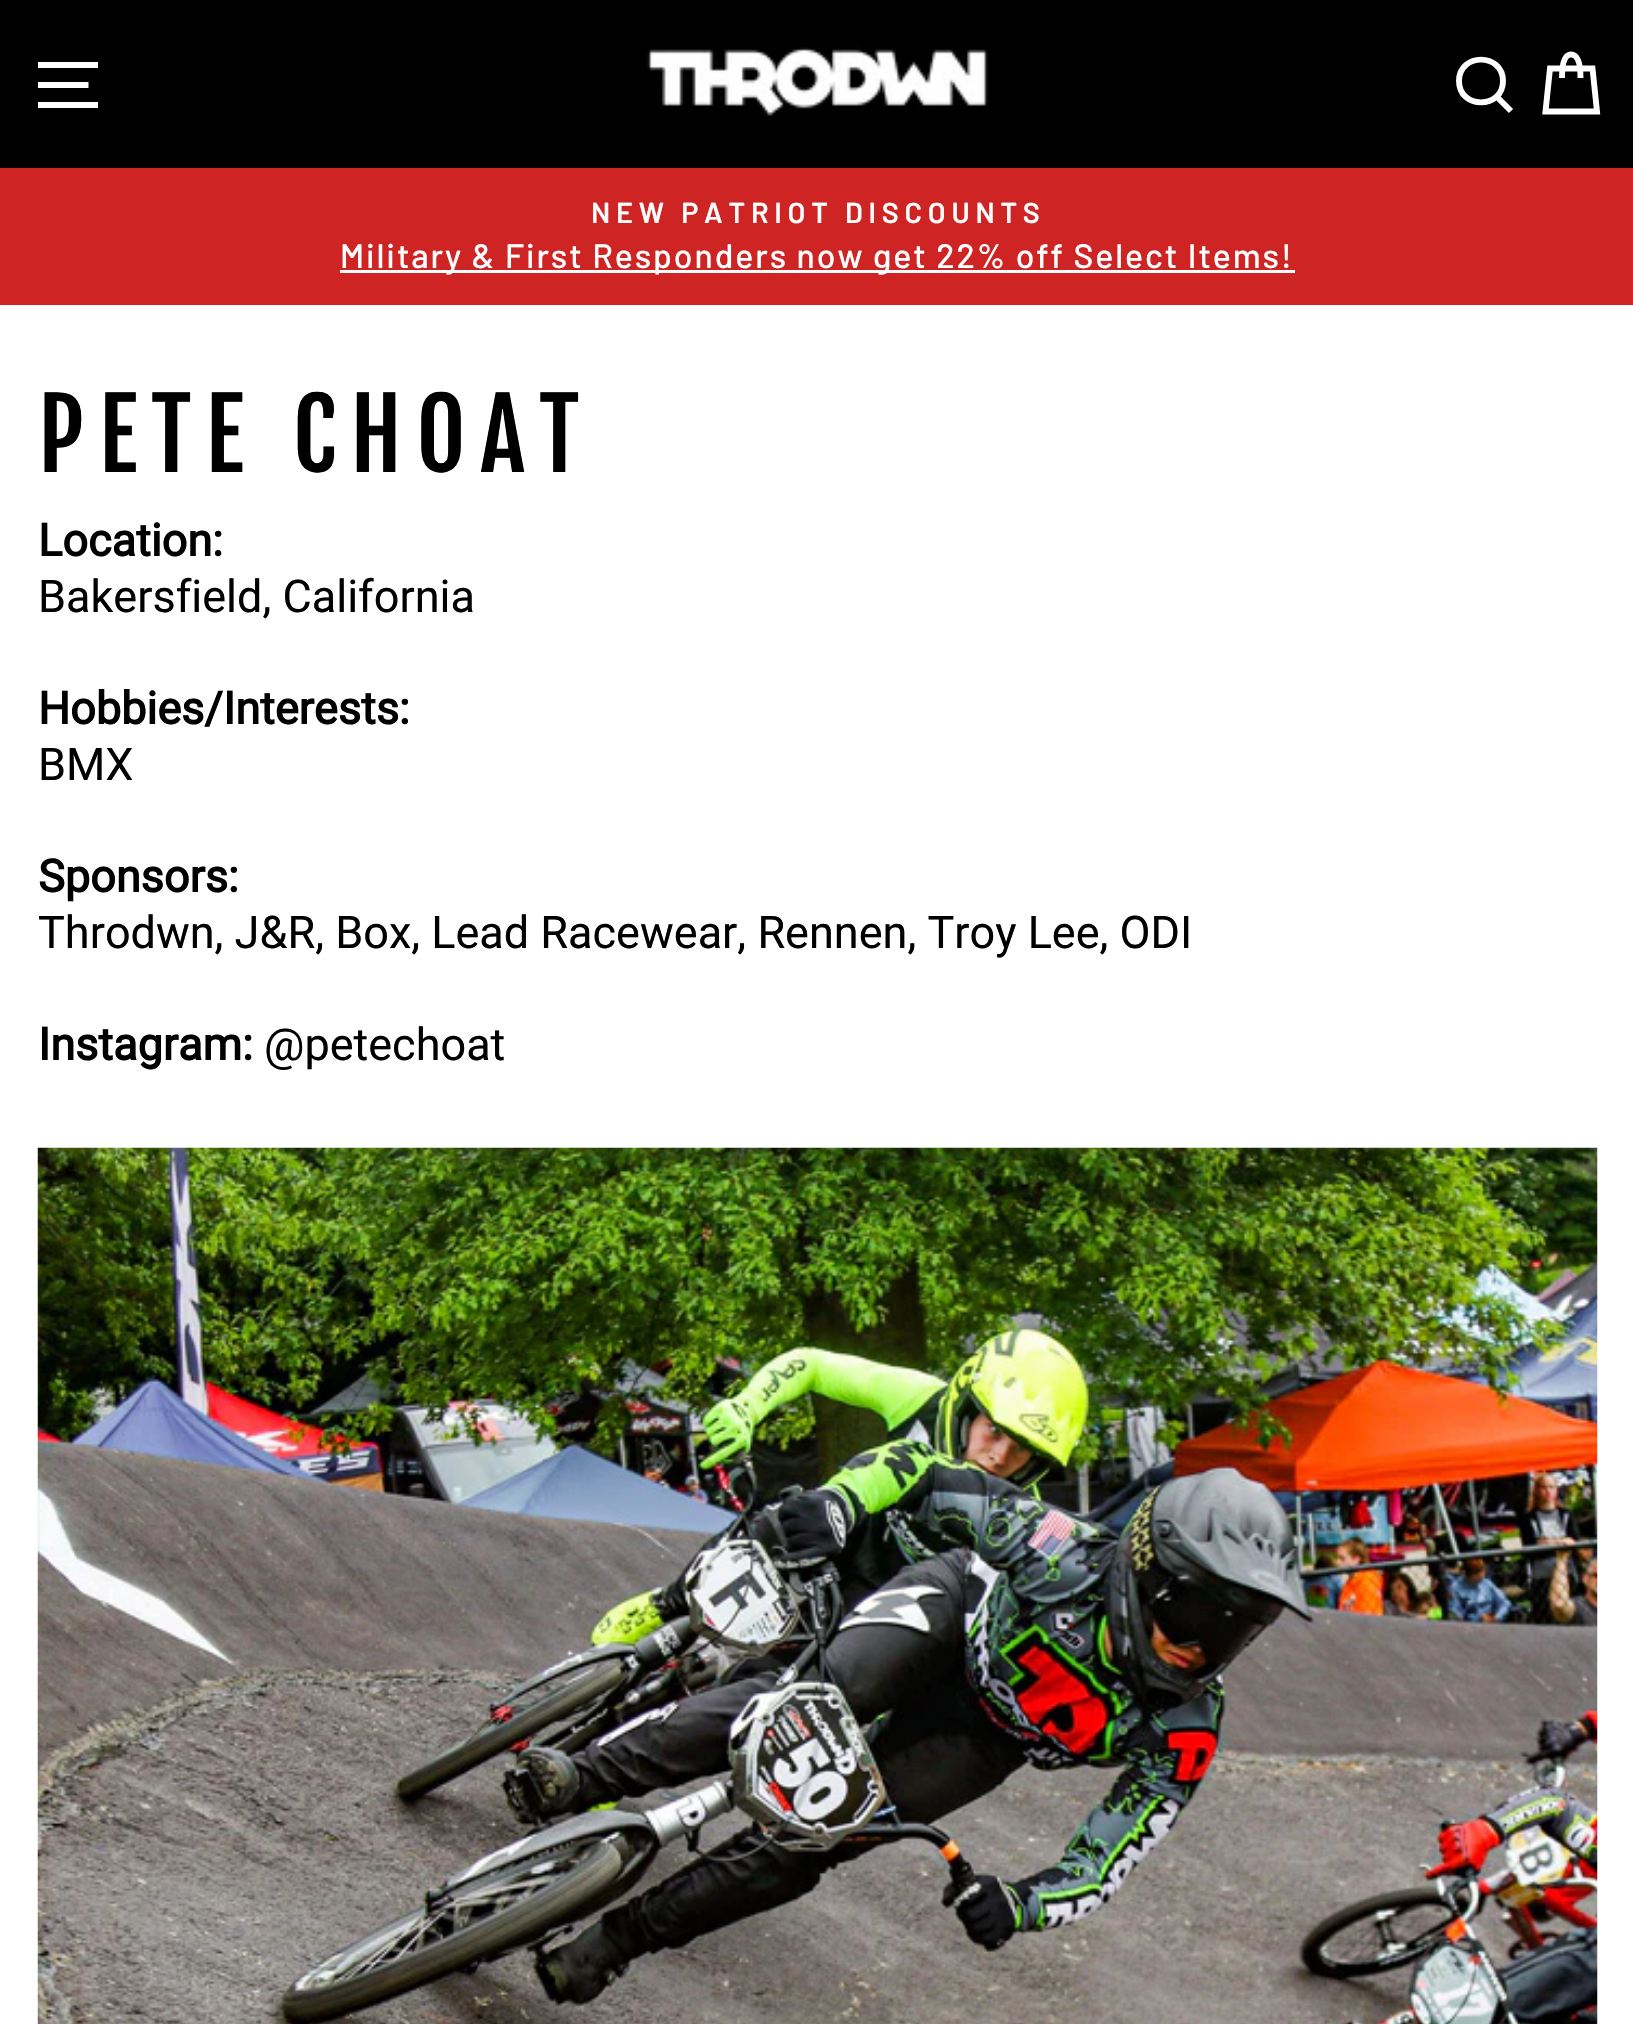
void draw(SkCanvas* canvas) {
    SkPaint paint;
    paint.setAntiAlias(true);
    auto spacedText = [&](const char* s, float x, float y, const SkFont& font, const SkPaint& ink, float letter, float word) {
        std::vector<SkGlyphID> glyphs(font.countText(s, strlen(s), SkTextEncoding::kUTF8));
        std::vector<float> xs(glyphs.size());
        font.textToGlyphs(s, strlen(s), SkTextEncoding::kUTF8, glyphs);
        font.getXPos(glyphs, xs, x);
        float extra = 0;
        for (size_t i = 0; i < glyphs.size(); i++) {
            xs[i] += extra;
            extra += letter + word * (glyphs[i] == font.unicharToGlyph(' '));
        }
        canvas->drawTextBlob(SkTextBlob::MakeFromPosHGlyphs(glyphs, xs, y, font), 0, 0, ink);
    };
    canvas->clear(0xFFFFFFFF);
    paint.setColor(0xFF000000);
    canvas->drawRect(SkRect::MakeXYWH(0, 0, 1633, 168), paint);
    paint.setStyle(SkPaint::kStroke_Style);
    paint.setStrokeWidth(5.9f);
    paint.setColor(0xFFFFFFFF);
    canvas->drawPath(SkPathBuilder().moveTo(38, 65).lineTo(98, 65).moveTo(38, 85).lineTo(88.5f, 85).moveTo(38, 105).lineTo(98, 105).detach(), paint);
    canvas->drawImageRect(SkImages::DeferredFromEncodedData(SkData::MakeFromFileName("img1.png")), SkRect::MakeXYWH(647, 46, 341, 74), SkSamplingOptions());
    canvas->drawPath(SkPathBuilder().moveTo(1503, 81).cubicTo(1503, 109.5f, 1459, 109.5f, 1459, 81).cubicTo(1459, 52.5f, 1503, 52.5f, 1503, 81).close().moveTo(1511, 111).lineTo(1496.5f, 96.5f).detach(), paint);
    canvas->drawPath(SkPathBuilder().moveTo(1562, 78).cubicTo(1562, 59.5f, 1566, 54.5f, 1571, 54.5f).cubicTo(1576.5f, 54.5f, 1580.5f, 59.5f, 1580.5f, 78).detach(), paint);
    canvas->drawPath(SkPathBuilder().moveTo(1550, 68.5f).lineTo(1592.5f, 68.5f).lineTo(1597, 111.5f).lineTo(1545.5f, 111.5f).close().detach(), paint);
    paint.setStyle(SkPaint::kFill_Style);
    paint.setColor(0xFFCF2424);
    canvas->drawRect(SkRect::MakeXYWH(0, 168, 1633, 137), paint);
    SkFont font1(fontMgr->matchFamilyStyle("Barlow", SkFontStyle(600, SkFontStyle::kNormal_Width, SkFontStyle::kUpright_Slant)), 28.75f);
    font1.setSubpixel(true);
    paint.setColor(0xFFFFFFFF);
    spacedText("NEW PATRIOT DISCOUNTS", 591, 223, font1, paint, 5.75f, 0);
    canvas->drawRect(SkRect::MakeXYWH(340, 270, 955, 3), paint);
    SkFont font2(fontMgr->matchFamilyStyle("Barlow", SkFontStyle(500, SkFontStyle::kNormal_Width, SkFontStyle::kUpright_Slant)), 33.75f);
    font2.setSubpixel(true);
    spacedText("Military & First Responders now get 22% off Select Items!", 340, 268, font2, paint, 1.9f, 0);
    SkFont font3(fontMgr->matchFamilyStyle("Fjalla One", SkFontStyle::Normal()), 95.5f);
    font3.setSubpixel(true);
    paint.setColor(0xFF000000);
    spacedText("PETE CHOAT", 38, 472, font3, paint, 14.25f, 0);
    SkFont font4(fontMgr->matchFamilyStyle("Roboto", SkFontStyle::Bold()), 45);
    font4.setSubpixel(true);
    canvas->drawString("Location:", 38, 556, font4, paint);
    SkFont font5(fontMgr->matchFamilyStyle("Roboto", SkFontStyle::Normal()), 45);
    font5.setSubpixel(true);
    canvas->drawString("Bakersfield, California", 38, 612, font5, paint);
    canvas->drawString("Hobbies/Interests:", 38, 724, font4, paint);
    canvas->drawString("BMX", 38, 780, font5, paint);
    canvas->drawString("Sponsors:", 38, 892, font4, paint);
    canvas->drawString("Throdwn, J&R, Box, Lead Racewear, Rennen, Troy Lee, ODI", 38, 948, font5, paint);
    canvas->drawString("Instagram:", 38, 1060, font4, paint);
    canvas->drawString("@petechoat", 264, 1060, font5, paint);
    canvas->drawImageRect(SkImages::DeferredFromEncodedData(SkData::MakeFromFileName("img2.png")), SkRect::MakeXYWH(37, 1147, 1561, 877), SkSamplingOptions());
}
